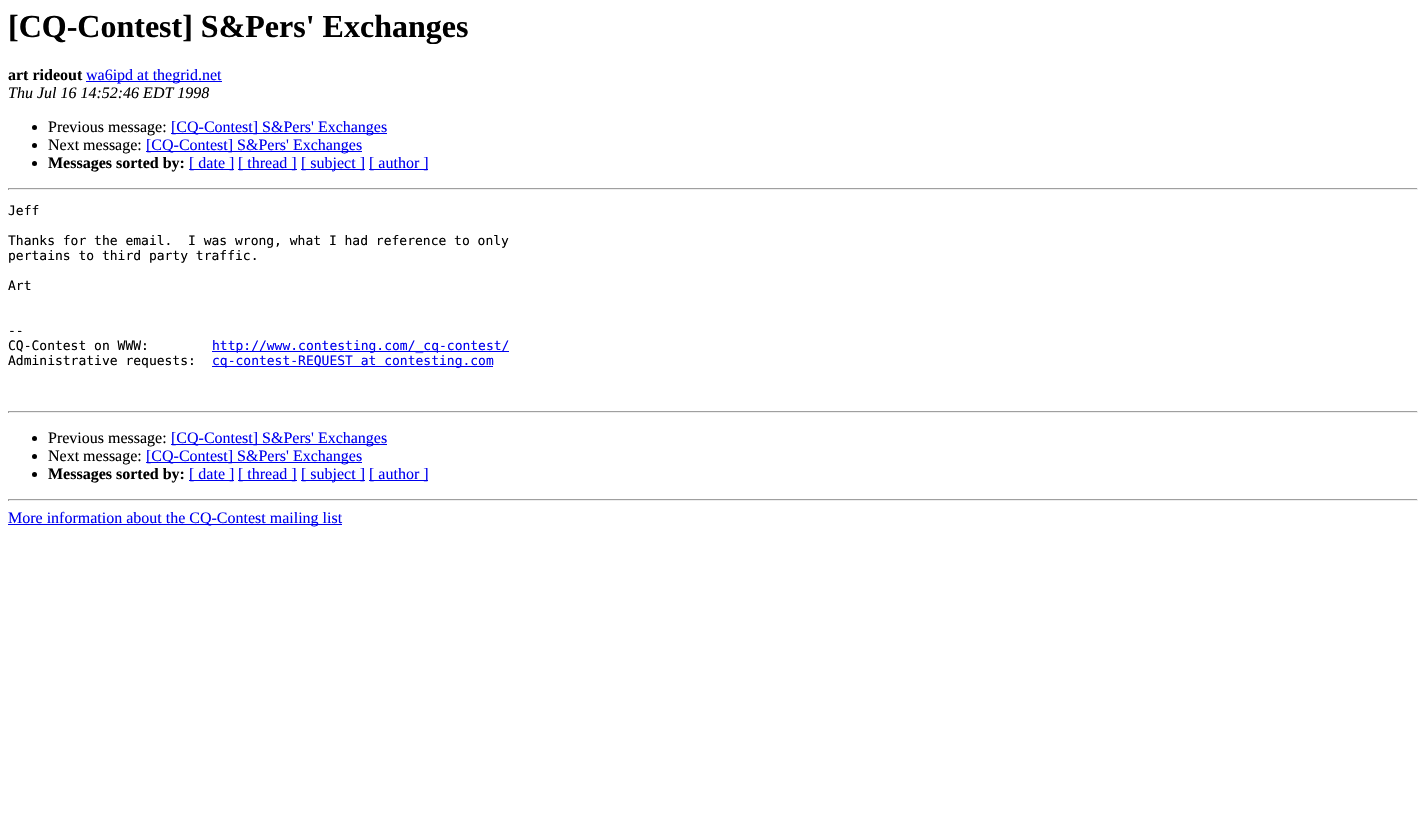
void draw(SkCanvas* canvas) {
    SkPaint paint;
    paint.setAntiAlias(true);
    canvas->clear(0xFFFFFFFF);
    SkFont font1(fontMgr->matchFamilyStyle("Liberation Serif", SkFontStyle::Bold()), 32);
    font1.setSubpixel(true);
    paint.setColor(0xFF000000);
    canvas->drawString("[CQ-Contest] S&Pers' Exchanges", 8, 37, font1, paint);
    SkFont font2(fontMgr->matchFamilyStyle("Liberation Serif", SkFontStyle::Bold()), 16);
    font2.setSubpixel(true);
    canvas->drawString("art rideout", 8, 80, font2, paint);
    paint.setColor(0xFF0000EE);
    canvas->drawRect(SkRect::MakeXYWH(86, 81, 136, 1), paint);
    SkFont font3(fontMgr->matchFamilyStyle("Liberation Serif", SkFontStyle::Normal()), 16);
    font3.setSubpixel(true);
    canvas->drawString("wa6ipd at thegrid.net", 86, 80, font3, paint);
    SkFont font4(fontMgr->matchFamilyStyle("Liberation Serif", SkFontStyle::Italic()), 16);
    font4.setSubpixel(true);
    paint.setColor(0xFF000000);
    canvas->drawString("Thu Jul 16 14:52:46 EDT 1998", 8, 98, font4, paint);
    canvas->drawCircle(34.5f, 127.5f, 2.5f, paint);
    canvas->drawString("Previous message:", 48, 132, font3, paint);
    paint.setColor(0xFF0000EE);
    canvas->drawRect(SkRect::MakeXYWH(171, 133, 216, 1), paint);
    canvas->drawString("[CQ-Contest] S&Pers' Exchanges", 171, 132, font3, paint);
    paint.setColor(0xFF000000);
    canvas->drawCircle(34.5f, 145.5f, 2.5f, paint);
    canvas->drawString("Next message:", 48, 150, font3, paint);
    paint.setColor(0xFF0000EE);
    canvas->drawRect(SkRect::MakeXYWH(146, 151, 216, 1), paint);
    canvas->drawString("[CQ-Contest] S&Pers' Exchanges", 146, 150, font3, paint);
    paint.setColor(0xFF000000);
    canvas->drawCircle(34.5f, 163.5f, 2.5f, paint);
    canvas->drawString("Messages sorted by:", 48, 168, font2, paint);
    paint.setColor(0xFF0000EE);
    canvas->drawRect(SkRect::MakeXYWH(189, 169, 45, 1), paint);
    canvas->drawString("[ date ]", 189, 168, font3, paint);
    canvas->drawRect(SkRect::MakeXYWH(238, 169, 59, 1), paint);
    canvas->drawString("[ thread ]", 238, 168, font3, paint);
    canvas->drawRect(SkRect::MakeXYWH(301, 169, 64, 1), paint);
    canvas->drawString("[ subject ]", 301, 168, font3, paint);
    canvas->drawRect(SkRect::MakeXYWH(369, 169, 59, 1), paint);
    canvas->drawString("[ author ]", 369, 168, font3, paint);
    paint.setColor(0xFF9F9F9F);
    canvas->drawRect(SkRect::MakeXYWH(8, 188, 1410, 1), paint);
    paint.setColor(0xFFEEEEEE);
    canvas->drawRect(SkRect::MakeXYWH(1417, 188, 1, 2), paint);
    canvas->drawRect(SkRect::MakeXYWH(8, 189, 1410, 1), paint);
    paint.setColor(0xFF9F9F9F);
    canvas->drawRect(SkRect::MakeXYWH(8, 188, 1, 2), paint);
    SkFont font5(fontMgr->matchFamilyStyle("DejaVu Sans Mono", SkFontStyle::Normal()), 13);
    font5.setSubpixel(true);
    paint.setColor(0xFF000000);
    canvas->drawString("Jeff", 8, 215, font5, paint);
    canvas->drawString("Thanks for the email.  I was wrong, what I had reference to only", 8, 245, font5, paint);
    canvas->drawString("pertains to third party traffic.", 8, 260, font5, paint);
    canvas->drawString("Art", 8, 290, font5, paint);
    canvas->drawString("--", 8, 335, font5, paint);
    canvas->drawString("CQ-Contest on WWW:", 8, 350, font5, paint);
    paint.setColor(0xFF0000EE);
    canvas->drawRect(SkRect::MakeXYWH(212, 351, 297, 1), paint);
    canvas->drawString("http://www.contesting.com/_cq-contest/", 212, 350, font5, paint);
    paint.setColor(0xFF000000);
    canvas->drawString("Administrative requests:", 8, 365, font5, paint);
    paint.setColor(0xFF0000EE);
    canvas->drawRect(SkRect::MakeXYWH(212, 366, 281, 1), paint);
    canvas->drawString("cq-contest-REQUEST at contesting.com", 212, 365, font5, paint);
    paint.setColor(0xFF9F9F9F);
    canvas->drawRect(SkRect::MakeXYWH(8, 411, 1410, 1), paint);
    paint.setColor(0xFFEEEEEE);
    canvas->drawRect(SkRect::MakeXYWH(1417, 411, 1, 2), paint);
    canvas->drawRect(SkRect::MakeXYWH(8, 412, 1410, 1), paint);
    paint.setColor(0xFF9F9F9F);
    canvas->drawRect(SkRect::MakeXYWH(8, 411, 1, 2), paint);
    paint.setColor(0xFF000000);
    canvas->drawCircle(34.5f, 438.5f, 2.5f, paint);
    canvas->drawString("Previous message:", 48, 443, font3, paint);
    paint.setColor(0xFF0000EE);
    canvas->drawRect(SkRect::MakeXYWH(171, 444, 216, 1), paint);
    canvas->drawString("[CQ-Contest] S&Pers' Exchanges", 171, 443, font3, paint);
    paint.setColor(0xFF000000);
    canvas->drawCircle(34.5f, 456.5f, 2.5f, paint);
    canvas->drawString("Next message:", 48, 461, font3, paint);
    paint.setColor(0xFF0000EE);
    canvas->drawRect(SkRect::MakeXYWH(146, 462, 216, 1), paint);
    canvas->drawString("[CQ-Contest] S&Pers' Exchanges", 146, 461, font3, paint);
    paint.setColor(0xFF000000);
    canvas->drawCircle(34.5f, 474.5f, 2.5f, paint);
    canvas->drawString("Messages sorted by:", 48, 479, font2, paint);
    paint.setColor(0xFF0000EE);
    canvas->drawRect(SkRect::MakeXYWH(189, 480, 45, 1), paint);
    canvas->drawString("[ date ]", 189, 479, font3, paint);
    canvas->drawRect(SkRect::MakeXYWH(238, 480, 59, 1), paint);
    canvas->drawString("[ thread ]", 238, 479, font3, paint);
    canvas->drawRect(SkRect::MakeXYWH(301, 480, 64, 1), paint);
    canvas->drawString("[ subject ]", 301, 479, font3, paint);
    canvas->drawRect(SkRect::MakeXYWH(369, 480, 59, 1), paint);
    canvas->drawString("[ author ]", 369, 479, font3, paint);
    paint.setColor(0xFF9F9F9F);
    canvas->drawRect(SkRect::MakeXYWH(8, 499, 1410, 1), paint);
    paint.setColor(0xFFEEEEEE);
    canvas->drawRect(SkRect::MakeXYWH(1417, 499, 1, 2), paint);
    canvas->drawRect(SkRect::MakeXYWH(8, 500, 1410, 1), paint);
    paint.setColor(0xFF9F9F9F);
    canvas->drawRect(SkRect::MakeXYWH(8, 499, 1, 2), paint);
    paint.setColor(0xFF0000EE);
    canvas->drawRect(SkRect::MakeXYWH(8, 524, 334, 1), paint);
    canvas->drawString("More information about the CQ-Contest mailing list", 8, 523, font3, paint);
}
